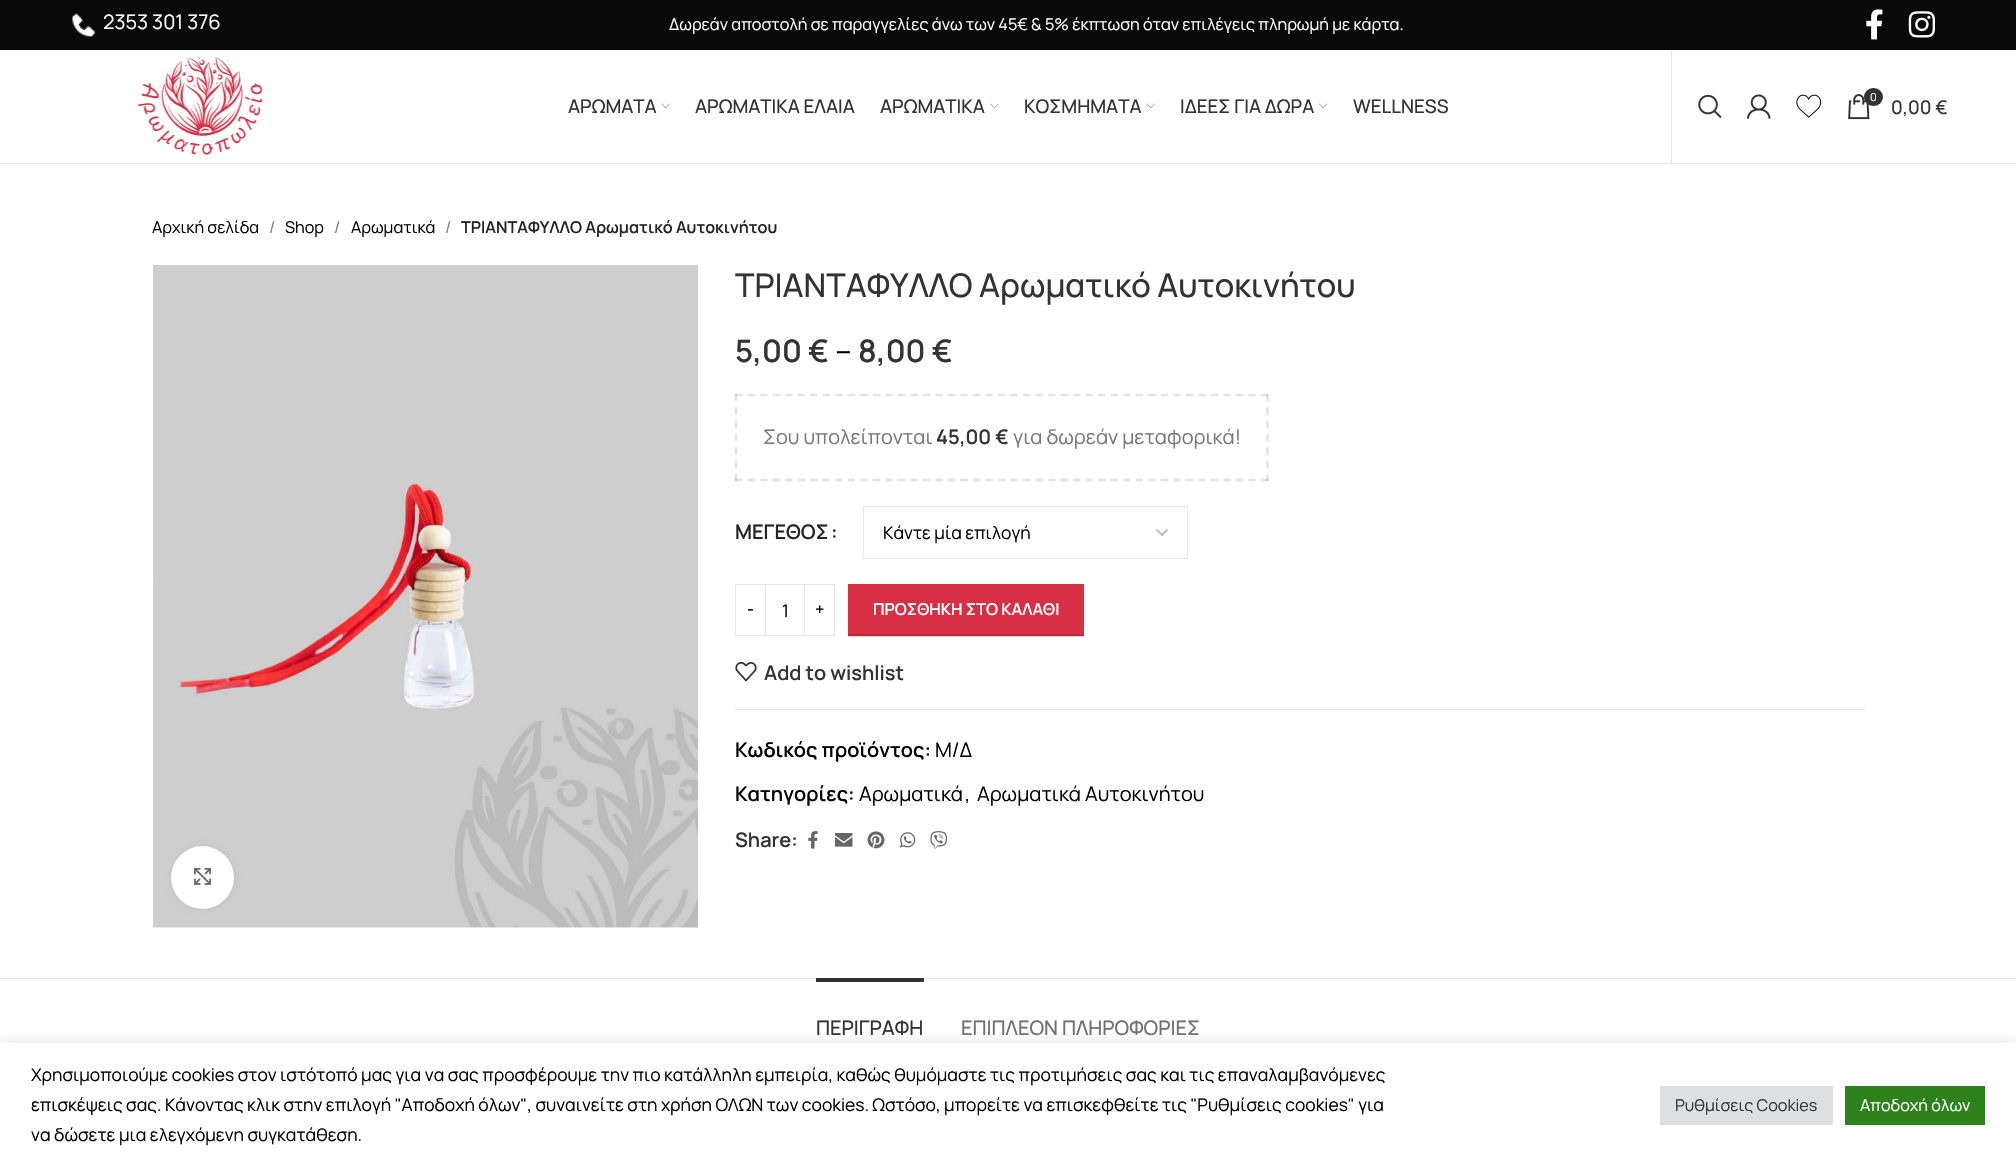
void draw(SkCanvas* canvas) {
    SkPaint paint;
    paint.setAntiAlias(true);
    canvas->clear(0xFFFFFFFF);
    paint.setColor(0xFFD9D9D9);
    canvas->drawRect(SkRect::MakeXYWH(848, 636, 236, 1), paint);
    paint.setColor(0xFF0A0909);
    canvas->drawRect(SkRect::MakeXYWH(0, 0, 2016, 50), paint);
    canvas->drawImageRect(SkImages::DeferredFromEncodedData(SkData::MakeFromFileName("img1.png")), SkRect::MakeXYWH(72, 13, 24, 24), SkSamplingOptions());
    SkFont font1(fontMgr->matchFamilyStyle("Manrope", SkFontStyle::Normal()), 20);
    font1.setSubpixel(true);
    paint.setColor(0xFFFFFFFF);
    canvas->drawString("2353 301 376", 103, 29, font1, paint);
    SkFont font2(fontMgr->matchFamilyStyle("Manrope", SkFontStyle::Normal()), 16.25f);
    font2.setSubpixel(true);
    canvas->drawString("Δωρεάν αποστολή σε παραγγελίες άνω των 45€ & 5% έκπτωση όταν επιλέγεις πληρωμή με κάρτα.", 669, 30, font2, paint);
    canvas->drawImageRect(SkImages::DeferredFromEncodedData(SkData::MakeFromFileName("img2.png")), SkRect::MakeXYWH(1866, 9, 17, 31), SkSamplingOptions());
    canvas->drawImageRect(SkImages::DeferredFromEncodedData(SkData::MakeFromFileName("img3.png")), SkRect::MakeXYWH(1908, 11, 27, 27), SkSamplingOptions());
    paint.setColor(0xFFE6E6E6);
    canvas->drawRect(SkRect::MakeXYWH(0, 163, 2016, 1), paint);
    canvas->drawImageRect(SkImages::DeferredFromEncodedData(SkData::MakeFromFileName("img4.png")), SkRect::MakeXYWH(137, 57, 126, 98), SkSamplingOptions());
    SkFont font3(fontMgr->matchFamilyStyle("Manrope", SkFontStyle(500, SkFontStyle::kNormal_Width, SkFontStyle::kUpright_Slant)), 18.75f);
    font3.setSubpixel(true);
    paint.setColor(0xFF333333);
    canvas->drawString("ΑΡΩΜΑΤΑ", 568, 113, font3, paint);
    canvas->drawImageRect(SkImages::DeferredFromEncodedData(SkData::MakeFromFileName("img5.png")), SkRect::MakeXYWH(661, 103, 9, 6), SkSamplingOptions());
    canvas->drawString("ΑΡΩΜΑΤΙΚΑ ΕΛΑΙΑ", 695, 113, font3, paint);
    canvas->drawString("ΑΡΩΜΑΤΙΚΑ", 880, 113, font3, paint);
    canvas->drawImageRect(SkImages::DeferredFromEncodedData(SkData::MakeFromFileName("img6.png")), SkRect::MakeXYWH(990, 103, 9, 6), SkSamplingOptions());
    canvas->drawString("ΚΟΣΜΗΜΑΤΑ", 1024, 113, font3, paint);
    canvas->drawImageRect(SkImages::DeferredFromEncodedData(SkData::MakeFromFileName("img5.png")), SkRect::MakeXYWH(1146, 103, 9, 6), SkSamplingOptions());
    canvas->drawString("ΙΔΕΕΣ ΓΙΑ ΔΩΡΑ", 1180, 113, font3, paint);
    canvas->drawImageRect(SkImages::DeferredFromEncodedData(SkData::MakeFromFileName("img7.png")), SkRect::MakeXYWH(1319, 103, 9, 6), SkSamplingOptions());
    canvas->drawString("WELLNESS", 1353, 113, font3, paint);
    paint.setColor(0xFFE4E4E4);
    canvas->drawRect(SkRect::MakeXYWH(1671, 50, 1, 113), paint);
    canvas->drawImageRect(SkImages::DeferredFromEncodedData(SkData::MakeFromFileName("img8.png")), SkRect::MakeXYWH(1698, 94, 24, 25), SkSamplingOptions());
    canvas->drawImageRect(SkImages::DeferredFromEncodedData(SkData::MakeFromFileName("img9.png")), SkRect::MakeXYWH(1747, 94, 24, 25), SkSamplingOptions());
    canvas->drawImageRect(SkImages::DeferredFromEncodedData(SkData::MakeFromFileName("img10.png")), SkRect::MakeXYWH(1796, 94, 25, 24), SkSamplingOptions());
    canvas->drawImageRect(SkImages::DeferredFromEncodedData(SkData::MakeFromFileName("img11.png")), SkRect::MakeXYWH(1848, 94, 22, 26), SkSamplingOptions());
    paint.setColor(0xFF333333);
    canvas->drawRoundRect(SkRect::MakeXYWH(1864, 88, 19, 18), 9, 9, paint);
    SkFont font4(fontMgr->matchFamilyStyle("Manrope", SkFontStyle::Normal()), 11);
    font4.setSubpixel(true);
    paint.setColor(0xFFFFFFFF);
    canvas->drawString("0", 1870, 101, font4, paint);
    paint.setColor(0xFF333333);
    canvas->drawString("0,00 €", 1891, 114, font3, paint);
    paint.setColor(0xFF000000);
    canvas->drawString("Αρχική σελίδα", 152, 233, font2, paint);
    paint.setColor(0xFF777777);
    canvas->drawString("/", 269, 233, font2, paint);
    paint.setColor(0xFF000000);
    canvas->drawString("Shop", 285, 233, font2, paint);
    paint.setColor(0xFF777777);
    canvas->drawString("/", 334, 233, font2, paint);
    paint.setColor(0xFF000000);
    canvas->drawString("Αρωματικά", 351, 233, font2, paint);
    paint.setColor(0xFF777777);
    canvas->drawString("/", 445, 233, font2, paint);
    SkFont font5(fontMgr->matchFamilyStyle("Manrope", SkFontStyle(600, SkFontStyle::kNormal_Width, SkFontStyle::kUpright_Slant)), 16.25f);
    font5.setSubpixel(true);
    paint.setColor(0xFF242424);
    canvas->drawString("ΤΡΙΑΝΤΑΦΥΛΛΟ Αρωματικό Αυτοκινήτου", 461, 233, font5, paint);
    canvas->drawImageRect(SkImages::DeferredFromEncodedData(SkData::MakeFromFileName("img12.png")), SkRect::MakeXYWH(153, 265, 545, 663), SkSamplingOptions());
    paint.setColor(0xFFFFFFFF);
    canvas->drawPath(SkPathBuilder().moveTo(153.5f, 583.5f).lineTo(151.5f, 581.5f).lineTo(137.5f, 595.5f).lineTo(151.5f, 609.5f).lineTo(153.5f, 608).lineTo(141, 595.5f).close().detach(), paint);
    paint.setColor(0x14000000);
    paint.setMaskFilter(SkMaskFilter::MakeBlur(kNormal_SkBlurStyle, 3));
    canvas->drawRoundRect(SkRect::MakeXYWH(171, 846, 63, 63), 31.5f, 31.5f, paint);
    paint.setMaskFilter(nullptr);
    paint.setColor(0xFFFFFFFF);
    canvas->drawCircle(202.5f, 877.5f, 31.5f, paint);
    canvas->drawImageRect(SkImages::DeferredFromEncodedData(SkData::MakeFromFileName("img13.png")), SkRect::MakeXYWH(194, 868, 17, 17), SkSamplingOptions());
    SkFont font6(fontMgr->matchFamilyStyle("Manrope", SkFontStyle(500, SkFontStyle::kNormal_Width, SkFontStyle::kUpright_Slant)), 32.5f);
    font6.setSubpixel(true);
    paint.setColor(0xFF333333);
    canvas->drawString("ΤΡΙΑΝΤΑΦΥΛΛΟ Αρωματικό Αυτοκινήτου", 735, 297, font6, paint);
    SkFont font7(fontMgr->matchFamilyStyle("Manrope", SkFontStyle(600, SkFontStyle::kNormal_Width, SkFontStyle::kUpright_Slant)), 31);
    font7.setSubpixel(true);
    canvas->drawString("5,00 €", 735, 362, font7, paint);
    SkFont font8(fontMgr->matchFamilyStyle("Manrope", SkFontStyle::Normal()), 31);
    font8.setSubpixel(true);
    paint.setColor(0xFF000000);
    canvas->drawString("–", 835, 362, font8, paint);
    paint.setColor(0xFF333333);
    canvas->drawString("8,00 €", 858, 362, font7, paint);
    paint.setStyle(SkPaint::kStroke_Style);
    paint.setStrokeWidth(2.5f);
    paint.setColor(0xFFE4E4E4);
    paint.setPathEffect(SkDashPathEffect::Make({{7.5f, 5.02f}}, 0));
    canvas->drawPath(SkPathBuilder().moveTo(735, 395).lineTo(1269, 395).detach(), paint);
    paint.setPathEffect(nullptr);
    paint.setColor(0x1C000000);
    paint.setPathEffect(SkDashPathEffect::Make({{7.5f, 5.84f}}, 0));
    canvas->drawPath(SkPathBuilder().moveTo(1267.5f, 394).lineTo(1267.5f, 481).detach(), paint);
    paint.setPathEffect(nullptr);
    paint.setPathEffect(SkDashPathEffect::Make({{7.5f, 5.02f}}, 0));
    canvas->drawPath(SkPathBuilder().moveTo(735, 480).lineTo(1269, 480).detach(), paint);
    paint.setPathEffect(nullptr);
    paint.setPathEffect(SkDashPathEffect::Make({{7.5f, 5.84f}}, 0));
    canvas->drawPath(SkPathBuilder().moveTo(736, 394).lineTo(736, 481).detach(), paint);
    paint.setPathEffect(nullptr);
    paint.setStyle(SkPaint::kFill_Style);
    paint.setColor(0xFF777777);
    canvas->drawString("Σου υπολείπονται", 763, 444, font1, paint);
    SkFont font9(fontMgr->matchFamilyStyle("Manrope", SkFontStyle(600, SkFontStyle::kNormal_Width, SkFontStyle::kUpright_Slant)), 20);
    font9.setSubpixel(true);
    paint.setColor(0xFF333333);
    canvas->drawString("45,00 €", 936, 444, font9, paint);
    paint.setColor(0xFF777777);
    canvas->drawString("για δωρεάν μεταφορικά!", 1013, 444, font1, paint);
    paint.setColor(0xFF242424);
    canvas->drawString("ΜΕΓΕΘΟΣ", 735, 539, font9, paint);
    canvas->drawString(":", 831, 539, font9, paint);
    paint.setStyle(SkPaint::kStroke_Style);
    paint.setStrokeWidth(1.8f);
    paint.setColor(0xFFBBBBBB);
    canvas->drawPath(SkPathBuilder().moveTo(1156.5f, 529.5f).lineTo(1162, 535).lineTo(1167.5f, 529.5f).detach(), paint);
    paint.setStrokeWidth(1);
    paint.setColor(0xFFE6E6E6);
    canvas->drawRect(SkRect::MakeXYWH(863.5f, 506.5f, 324, 52), paint);
    SkFont font10(fontMgr->matchFamilyStyle("Manrope", SkFontStyle::Normal()), 17.5f);
    font10.setSubpixel(true);
    paint.setStyle(SkPaint::kFill_Style);
    paint.setColor(0xFF000000);
    canvas->drawString("Κάντε μία επιλογή", 883, 539, font10, paint);
    paint.setStyle(SkPaint::kStroke_Style);
    paint.setColor(0xFFE6E6E6);
    canvas->drawRect(SkRect::MakeXYWH(735.5f, 584.5f, 30, 51), paint);
    paint.setStyle(SkPaint::kFill_Style);
    paint.setColor(0xFF000000);
    canvas->drawString("-", 747, 615, font5, paint);
    paint.setColor(0xFFE6E6E6);
    canvas->drawRect(SkRect::MakeXYWH(766, 584, 38, 1), paint);
    canvas->drawRect(SkRect::MakeXYWH(766, 635, 38, 1), paint);
    paint.setColor(0xFF000000);
    canvas->drawString("1", 782, 617, font10, paint);
    paint.setStyle(SkPaint::kStroke_Style);
    paint.setColor(0xFFE6E6E6);
    canvas->drawRect(SkRect::MakeXYWH(804.5f, 584.5f, 30, 51), paint);
    paint.setStyle(SkPaint::kFill_Style);
    paint.setColor(0xFF000000);
    canvas->drawString("+", 815, 615, font5, paint);
    paint.setColor(0xFFD72F44);
    canvas->drawRect(SkRect::MakeXYWH(848, 584, 236, 50), paint);
    paint.setColor(0xFFB7283A);
    canvas->drawRect(SkRect::MakeXYWH(848, 634, 236, 2), paint);
    paint.setColor(0xFFFFFFFF);
    canvas->drawString("ΠΡΟΣΘΗΚΗ ΣΤΟ ΚΑΛΑΘΙ", 873, 615, font5, paint);
    canvas->drawImageRect(SkImages::DeferredFromEncodedData(SkData::MakeFromFileName("img14.png")), SkRect::MakeXYWH(735, 662, 22, 20), SkSamplingOptions());
    paint.setColor(0xFF333333);
    canvas->drawString("Add to wishlist", 764, 680, font9, paint);
    paint.setColor(0xFFE4E4E4);
    canvas->drawRect(SkRect::MakeXYWH(735, 709, 1130, 1), paint);
    paint.setColor(0xFF000000);
    canvas->drawString("Κωδικός προϊόντος:", 735, 757, font9, paint);
    canvas->drawString("Μ/Δ", 935, 757, font1, paint);
    canvas->drawString("Κατηγορίες:", 735, 801, font9, paint);
    canvas->drawString("Αρωματικά", 859, 801, font1, paint);
    canvas->drawString(",", 965, 801, font1, paint);
    canvas->drawString("Αρωματικά Αυτοκινήτου", 977, 801, font1, paint);
    paint.setColor(0xFF333333);
    canvas->drawString("Share:", 735, 847, font9, paint);
    canvas->drawImageRect(SkImages::DeferredFromEncodedData(SkData::MakeFromFileName("img15.png")), SkRect::MakeXYWH(808, 831, 10, 18), SkSamplingOptions());
    canvas->drawImageRect(SkImages::DeferredFromEncodedData(SkData::MakeFromFileName("img16.png")), SkRect::MakeXYWH(835, 833, 18, 14), SkSamplingOptions());
    canvas->drawImageRect(SkImages::DeferredFromEncodedData(SkData::MakeFromFileName("img17.png")), SkRect::MakeXYWH(867, 831, 18, 18), SkSamplingOptions());
    canvas->drawImageRect(SkImages::DeferredFromEncodedData(SkData::MakeFromFileName("img18.png")), SkRect::MakeXYWH(900, 832, 16, 16), SkSamplingOptions());
    canvas->drawImageRect(SkImages::DeferredFromEncodedData(SkData::MakeFromFileName("img19.png")), SkRect::MakeXYWH(930, 831, 17, 18), SkSamplingOptions());
    paint.setColor(0xFFE4E4E4);
    canvas->drawRect(SkRect::MakeXYWH(0, 978, 2016, 1), paint);
    paint.setColor(0xFF333333);
    canvas->drawRect(SkRect::MakeXYWH(816, 978, 108, 4), paint);
    SkFont font11(fontMgr->matchFamilyStyle("Manrope", SkFontStyle(500, SkFontStyle::kNormal_Width, SkFontStyle::kUpright_Slant)), 20);
    font11.setSubpixel(true);
    canvas->drawString("ΠΕΡΙΓΡΑΦΗ", 816, 1035, font11, paint);
    paint.setColor(0xFF707070);
    canvas->drawString("ΕΠΙΠΛΕΟΝ ΠΛΗΡΟΦΟΡΙΕΣ", 961, 1035, font11, paint);
    paint.setColor(0x4DACABAB);
    paint.setMaskFilter(SkMaskFilter::MakeBlur(kNormal_SkBlurStyle, 6));
    canvas->drawRect(SkRect::MakeXYWH(0, 1041, 2016, 125), paint);
    paint.setMaskFilter(nullptr);
    paint.setColor(0xFFFFFFFF);
    canvas->drawRect(SkRect::MakeXYWH(0, 1043, 2016, 124), paint);
    paint.setColor(0xFF000000);
    canvas->drawString("Χρησιμοποιούμε cookies στον ιστότοπό μας για να σας προσφέρουμε την πιο κατάλληλη εμπειρία, καθώς θυμόμαστε τις προτιμήσεις σας και τις επαναλαμβανόμενες", 31, 1081, font10, paint);
    canvas->drawString("επισκέψεις σας. Κάνοντας κλικ στην επιλογή \"Αποδοχή όλων\", συναινείτε στη χρήση ΟΛΩΝ των cookies. Ωστόσο, μπορείτε να επισκεφθείτε τις \"Ρυθμίσεις cookies\" για", 31, 1111, font10, paint);
    canvas->drawString("να δώσετε μια ελεγχόμενη συγκατάθεση.", 31, 1141, font10, paint);
    paint.setColor(0xFFDEDFE0);
    canvas->drawRect(SkRect::MakeXYWH(1660, 1086, 173, 39), paint);
    paint.setColor(0xFF333333);
    canvas->drawString("Ρυθμίσεις Cookies", 1675, 1111, font2, paint);
    paint.setColor(0xFF2D821C);
    canvas->drawRect(SkRect::MakeXYWH(1845, 1086, 140, 39), paint);
    paint.setColor(0xFFFFFFFF);
    canvas->drawString("Αποδοχή όλων", 1860, 1111, font2, paint);
}
